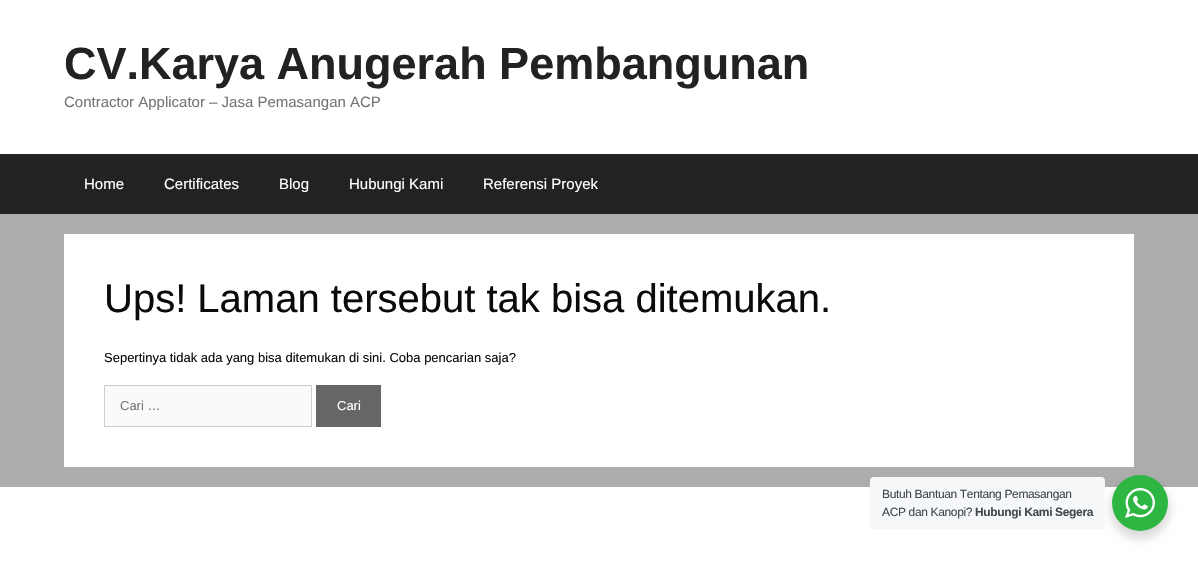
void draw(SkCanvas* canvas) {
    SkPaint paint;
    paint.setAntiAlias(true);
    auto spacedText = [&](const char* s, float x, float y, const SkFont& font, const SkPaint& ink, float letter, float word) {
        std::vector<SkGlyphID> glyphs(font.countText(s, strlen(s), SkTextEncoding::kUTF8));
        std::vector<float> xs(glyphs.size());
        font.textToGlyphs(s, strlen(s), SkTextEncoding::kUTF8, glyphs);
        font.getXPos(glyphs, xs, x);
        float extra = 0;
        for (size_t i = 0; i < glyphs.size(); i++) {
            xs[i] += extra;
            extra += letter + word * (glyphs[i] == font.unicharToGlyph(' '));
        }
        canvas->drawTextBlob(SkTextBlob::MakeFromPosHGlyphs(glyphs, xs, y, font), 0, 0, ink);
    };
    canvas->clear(0xFFADADAD);
    paint.setColor(0xFFFFFFFF);
    canvas->drawRect(SkRect::MakeXYWH(0, 0, 1198, 154), paint);
    SkFont font1(fontMgr->matchFamilyStyle("Liberation Sans", SkFontStyle::Bold()), 45);
    font1.setSubpixel(true);
    paint.setColor(0xFF222222);
    canvas->drawString("CV.Karya Anugerah Pembangunan", 64, 79, font1, paint);
    SkFont font2(fontMgr->matchFamilyStyle("Liberation Sans", SkFontStyle::Normal()), 15);
    font2.setSubpixel(true);
    paint.setColor(0xFF757575);
    canvas->drawString("Contractor Applicator – Jasa Pemasangan ACP", 64, 107, font2, paint);
    paint.setColor(0xFF222222);
    canvas->drawRect(SkRect::MakeXYWH(0, 154, 1198, 60), paint);
    paint.setColor(0xFFFFFFFF);
    canvas->drawString("Home", 84, 189, font2, paint);
    canvas->drawString("Certificates", 164, 189, font2, paint);
    canvas->drawString("Blog", 279, 189, font2, paint);
    canvas->drawString("Hubungi Kami", 349, 189, font2, paint);
    canvas->drawString("Referensi Proyek", 483, 189, font2, paint);
    canvas->drawRect(SkRect::MakeXYWH(64, 234, 1070, 233), paint);
    SkFont font3(fontMgr->matchFamilyStyle("Liberation Sans", SkFontStyle::Normal()), 40);
    font3.setSubpixel(true);
    paint.setColor(0xFF0A0A0A);
    canvas->drawString("Ups! Laman tersebut tak bisa ditemukan.", 104, 312, font3, paint);
    SkFont font4(fontMgr->matchFamilyStyle("Liberation Sans", SkFontStyle::Normal()), 13);
    font4.setSubpixel(true);
    canvas->drawString("Sepertinya tidak ada yang bisa ditemukan di sini. Coba pencarian saja?", 104, 362, font4, paint);
    paint.setColor(0xFFFAFAFA);
    canvas->drawRect(SkRect::MakeXYWH(104.5f, 385.5f, 207, 41), paint);
    paint.setStyle(SkPaint::kStroke_Style);
    paint.setStrokeWidth(1);
    paint.setColor(0xFFCCCCCC);
    canvas->drawRect(SkRect::MakeXYWH(104.5f, 385.5f, 207, 41), paint);
    paint.setStyle(SkPaint::kFill_Style);
    paint.setColor(0xFF757575);
    canvas->drawString("Cari …", 120, 410, font4, paint);
    paint.setColor(0xFF666666);
    canvas->drawRect(SkRect::MakeXYWH(316, 385, 65, 42), paint);
    paint.setColor(0xFFFFFFFF);
    canvas->drawString("Cari", 337, 410, font4, paint);
    canvas->drawRect(SkRect::MakeXYWH(0, 487, 1198, 74), paint);
    paint.setColor(0x24000000);
    paint.setMaskFilter(SkMaskFilter::MakeBlur(kNormal_SkBlurStyle, 4));
    canvas->drawRoundRect(SkRect::MakeXYWH(1110, 479, 60, 60), 30, 30, paint);
    paint.setMaskFilter(nullptr);
    paint.setColor(0xFFF5F7F9);
    canvas->drawRoundRect(SkRect::MakeXYWH(870, 477, 235, 52), 4, 4, paint);
    SkFont font5(fontMgr->matchFamilyStyle("Liberation Sans", SkFontStyle::Normal()), 12);
    font5.setSubpixel(true);
    paint.setColor(0xFF43474E);
    spacedText("Butuh Bantuan Tentang Pemasangan", 882, 498, font5, paint, -0.35f, 0);
    spacedText("ACP dan Kanopi?", 882, 516, font5, paint, -0.35f, 0);
    SkFont font6(fontMgr->matchFamilyStyle("Liberation Sans", SkFontStyle::Bold()), 12);
    font6.setSubpixel(true);
    spacedText("Hubungi Kami Segera", 975, 516, font6, paint, -0.35f, 0);
    paint.setColor(0xFF2DB742);
    canvas->drawCircle(1140, 503, 28, paint);
    canvas->drawImageRect(SkImages::DeferredFromEncodedData(SkData::MakeFromFileName("img1.png")), SkRect::MakeXYWH(1125, 488, 30, 30), SkSamplingOptions());
}
